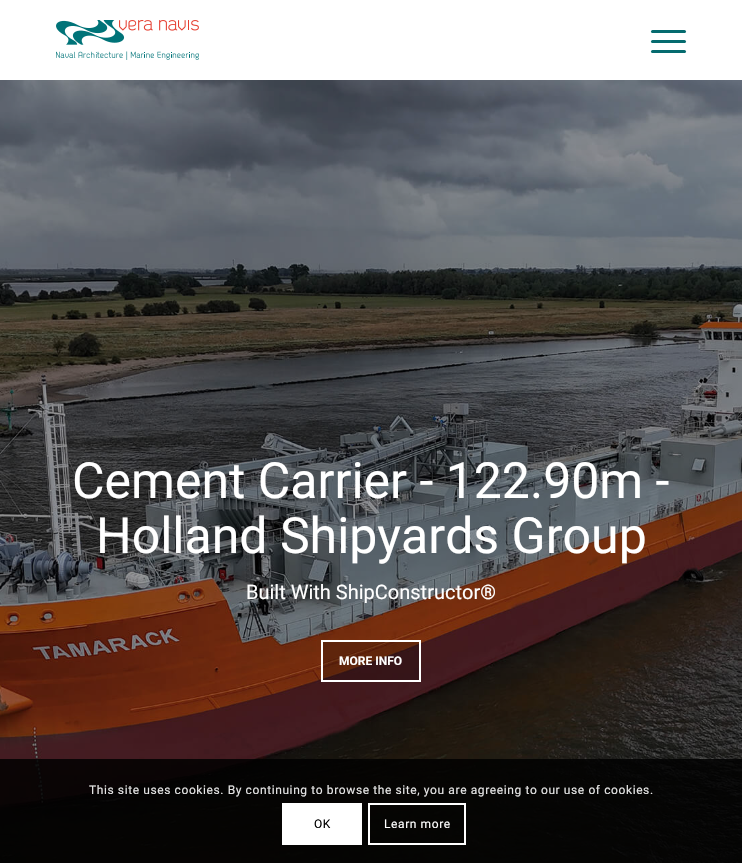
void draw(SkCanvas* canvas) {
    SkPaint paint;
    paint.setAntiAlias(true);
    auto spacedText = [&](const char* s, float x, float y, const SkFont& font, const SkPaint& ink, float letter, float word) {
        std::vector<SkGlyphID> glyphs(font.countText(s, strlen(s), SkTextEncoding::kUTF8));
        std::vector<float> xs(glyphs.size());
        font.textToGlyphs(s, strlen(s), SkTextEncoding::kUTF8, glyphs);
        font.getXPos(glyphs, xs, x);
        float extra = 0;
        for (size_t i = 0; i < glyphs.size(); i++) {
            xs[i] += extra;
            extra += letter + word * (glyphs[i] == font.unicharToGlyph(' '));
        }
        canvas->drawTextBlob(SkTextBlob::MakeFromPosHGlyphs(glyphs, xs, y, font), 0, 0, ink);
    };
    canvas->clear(0xFFFFFFFF);
    canvas->drawImageRect(SkImages::DeferredFromEncodedData(SkData::MakeFromFileName("img1.png")), SkRect::MakeXYWH(56, 20, 143, 40), SkSamplingOptions());
    paint.setColor(0xFF056B6F);
    canvas->drawRoundRect(SkRect::MakeXYWH(651, 40, 35, 3), 1.5f, 1.5f, paint);
    canvas->drawRoundRect(SkRect::MakeXYWH(651, 30, 35, 3), 1.5f, 1.5f, paint);
    canvas->drawRoundRect(SkRect::MakeXYWH(651, 50, 35, 3), 1.5f, 1.5f, paint);
    canvas->drawImageRect(SkImages::DeferredFromEncodedData(SkData::MakeFromFileName("img2.png")), SkRect::MakeXYWH(0, 80, 742, 783), SkSamplingOptions());
    SkFont font1(fontMgr->matchFamilyStyle("Roboto", SkFontStyle::Normal()), 50);
    font1.setSubpixel(true);
    paint.setColor(0xFFFFFFFF);
    canvas->drawString("Cement Carrier - 122.90m -", 72, 498, font1, paint);
    canvas->drawString("Holland Shipyards Group", 96, 553, font1, paint);
    SkFont font2(fontMgr->matchFamilyStyle("Roboto", SkFontStyle::Normal()), 20);
    font2.setSubpixel(true);
    canvas->drawString("Built With ShipConstructor®", 246, 599, font2, paint);
    paint.setColor(0x33000000);
    canvas->drawRect(SkRect::MakeXYWH(322, 641, 98, 40), paint);
    paint.setStyle(SkPaint::kStroke_Style);
    paint.setStrokeWidth(2);
    paint.setColor(0xFFFFFFFF);
    canvas->drawRect(SkRect::MakeXYWH(322, 641, 98, 40), paint);
    SkFont font3(fontMgr->matchFamilyStyle("Roboto", SkFontStyle::Bold()), 12);
    font3.setSubpixel(true);
    paint.setStyle(SkPaint::kFill_Style);
    canvas->drawString("MORE INFO", 339, 665, font3, paint);
    paint.setColor(0xD9000000);
    canvas->drawRect(SkRect::MakeXYWH(0, 759, 742, 104), paint);
    SkFont font4(fontMgr->matchFamilyStyle("Roboto", SkFontStyle::Normal()), 12);
    font4.setSubpixel(true);
    paint.setColor(0xFFE6E6E6);
    spacedText("This site uses cookies. By continuing to browse the site, you are agreeing to our use of cookies.", 89, 794, font4, paint, 0.6f, 0);
    paint.setColor(0xFFFFFFFF);
    canvas->drawRect(SkRect::MakeXYWH(282, 803, 80, 42), paint);
    paint.setColor(0xFF000000);
    spacedText("OK", 314, 828, font4, paint, 0.6f, 0);
    paint.setStyle(SkPaint::kStroke_Style);
    paint.setColor(0xFFFFFFFF);
    canvas->drawRect(SkRect::MakeXYWH(369, 804, 96, 40), paint);
    paint.setStyle(SkPaint::kFill_Style);
    spacedText("Learn more", 384, 828, font4, paint, 0.6f, 0);
}
